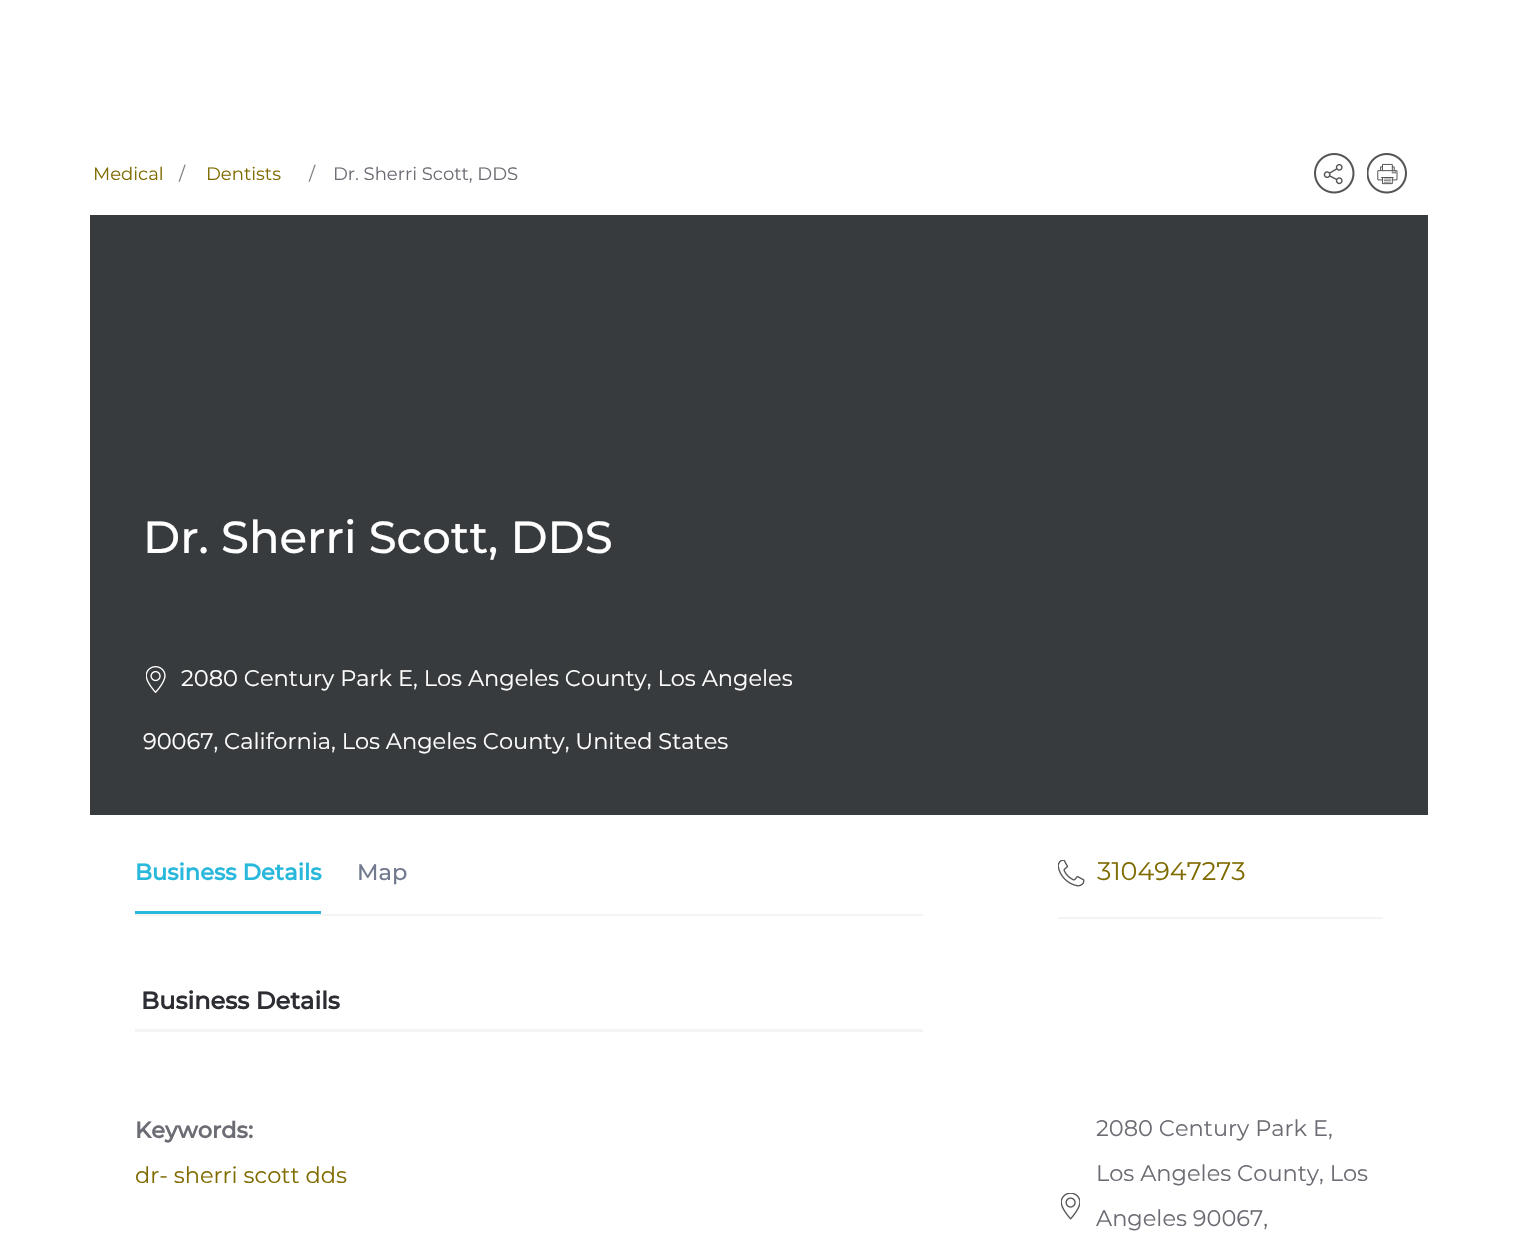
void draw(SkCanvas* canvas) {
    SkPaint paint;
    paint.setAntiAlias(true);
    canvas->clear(0xFFFFFFFF);
    SkFont font1(fontMgr->matchFamilyStyle("Montserrat", SkFontStyle(100, SkFontStyle::kNormal_Width, SkFontStyle::kUpright_Slant)), 18);
    font1.setSubpixel(true);
    paint.setColor(0xFF7F6B00);
    canvas->drawString("Medical", 93, 180, font1, paint);
    paint.setColor(0xFF7F7F7F);
    canvas->drawString("/", 179, 180, font1, paint);
    paint.setColor(0xFF7F6B00);
    canvas->drawString("Dentists", 206, 180, font1, paint);
    paint.setColor(0xFF7F7F7F);
    canvas->drawString("/", 309, 180, font1, paint);
    paint.setColor(0xFF6C6D74);
    canvas->drawString("Dr. Sherri Scott, DDS", 333, 180, font1, paint);
    canvas->drawImageRect(SkImages::DeferredFromEncodedData(SkData::MakeFromFileName("img1.png")), SkRect::MakeXYWH(1314, 153, 41, 41), SkSamplingOptions());
    canvas->drawImageRect(SkImages::DeferredFromEncodedData(SkData::MakeFromFileName("img2.png")), SkRect::MakeXYWH(1367, 153, 40, 41), SkSamplingOptions());
    paint.setColor(0xFF373B3D);
    canvas->drawRect(SkRect::MakeXYWH(90, 215, 1338, 600), paint);
    SkFont font2(fontMgr->matchFamilyStyle("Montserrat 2", SkFontStyle(100, SkFontStyle::kNormal_Width, SkFontStyle::kUpright_Slant)), 45);
    font2.setSubpixel(true);
    paint.setColor(0xFFFFFFFF);
    canvas->drawString("Dr. Sherri Scott, DDS", 143, 553, font2, paint);
    canvas->drawImageRect(SkImages::DeferredFromEncodedData(SkData::MakeFromFileName("img3.png")), SkRect::MakeXYWH(146, 666, 20, 27), SkSamplingOptions());
    SkFont font3(fontMgr->matchFamilyStyle("Montserrat", SkFontStyle(100, SkFontStyle::kNormal_Width, SkFontStyle::kUpright_Slant)), 22.5f);
    font3.setSubpixel(true);
    canvas->drawString("2080 Century Park E, Los Angeles County, Los Angeles", 181, 686, font3, paint);
    canvas->drawString("90067, California, Los Angeles County, United States", 143, 749, font3, paint);
    paint.setColor(0xFFF4F4F4);
    canvas->drawRect(SkRect::MakeXYWH(135, 914, 788, 2), paint);
    paint.setColor(0xFF28B8DC);
    canvas->drawRect(SkRect::MakeXYWH(135, 911, 186, 3), paint);
    SkFont font4(fontMgr->matchFamilyStyle("Montserrat", SkFontStyle::Bold()), 22.5f);
    font4.setSubpixel(true);
    canvas->drawString("Business Details", 135, 880, font4, paint);
    SkFont font5(fontMgr->matchFamilyStyle("Montserrat 2", SkFontStyle(100, SkFontStyle::kNormal_Width, SkFontStyle::kUpright_Slant)), 22.5f);
    font5.setSubpixel(true);
    paint.setColor(0xFF717A8F);
    canvas->drawString("Map", 357, 880, font5, paint);
    paint.setColor(0xFFF4F4F4);
    canvas->drawRect(SkRect::MakeXYWH(1058, 917, 325, 2), paint);
    canvas->drawImageRect(SkImages::DeferredFromEncodedData(SkData::MakeFromFileName("img4.png")), SkRect::MakeXYWH(1058, 860, 27, 27), SkSamplingOptions());
    SkFont font6(fontMgr->matchFamilyStyle("Montserrat", SkFontStyle(100, SkFontStyle::kNormal_Width, SkFontStyle::kUpright_Slant)), 25.5f);
    font6.setSubpixel(true);
    paint.setColor(0xFF7F6B00);
    canvas->drawString("3104947273", 1097, 880, font6, paint);
    paint.setColor(0xFFF4F4F4);
    canvas->drawRect(SkRect::MakeXYWH(135, 1029, 788, 3), paint);
    SkFont font7(fontMgr->matchFamilyStyle("Montserrat", SkFontStyle::Bold()), 24);
    font7.setSubpixel(true);
    paint.setColor(0xFF2D2E33);
    canvas->drawString("Business Details", 141, 1009, font7, paint);
    paint.setColor(0xFF6C6D74);
    canvas->drawString("Keywords:", 135, 1138, font4, paint);
    paint.setColor(0xFF7F6B00);
    canvas->drawString("dr- sherri scott dds", 135, 1183, font3, paint);
    canvas->drawImageRect(SkImages::DeferredFromEncodedData(SkData::MakeFromFileName("img5.png")), SkRect::MakeXYWH(1061, 1193, 19, 27), SkSamplingOptions());
    paint.setColor(0xFF6C6D74);
    canvas->drawString("2080 Century Park E,", 1096, 1136, font3, paint);
    canvas->drawString("Los Angeles County, Los", 1096, 1181, font3, paint);
    canvas->drawString("Angeles 90067,", 1096, 1226, font3, paint);
}
